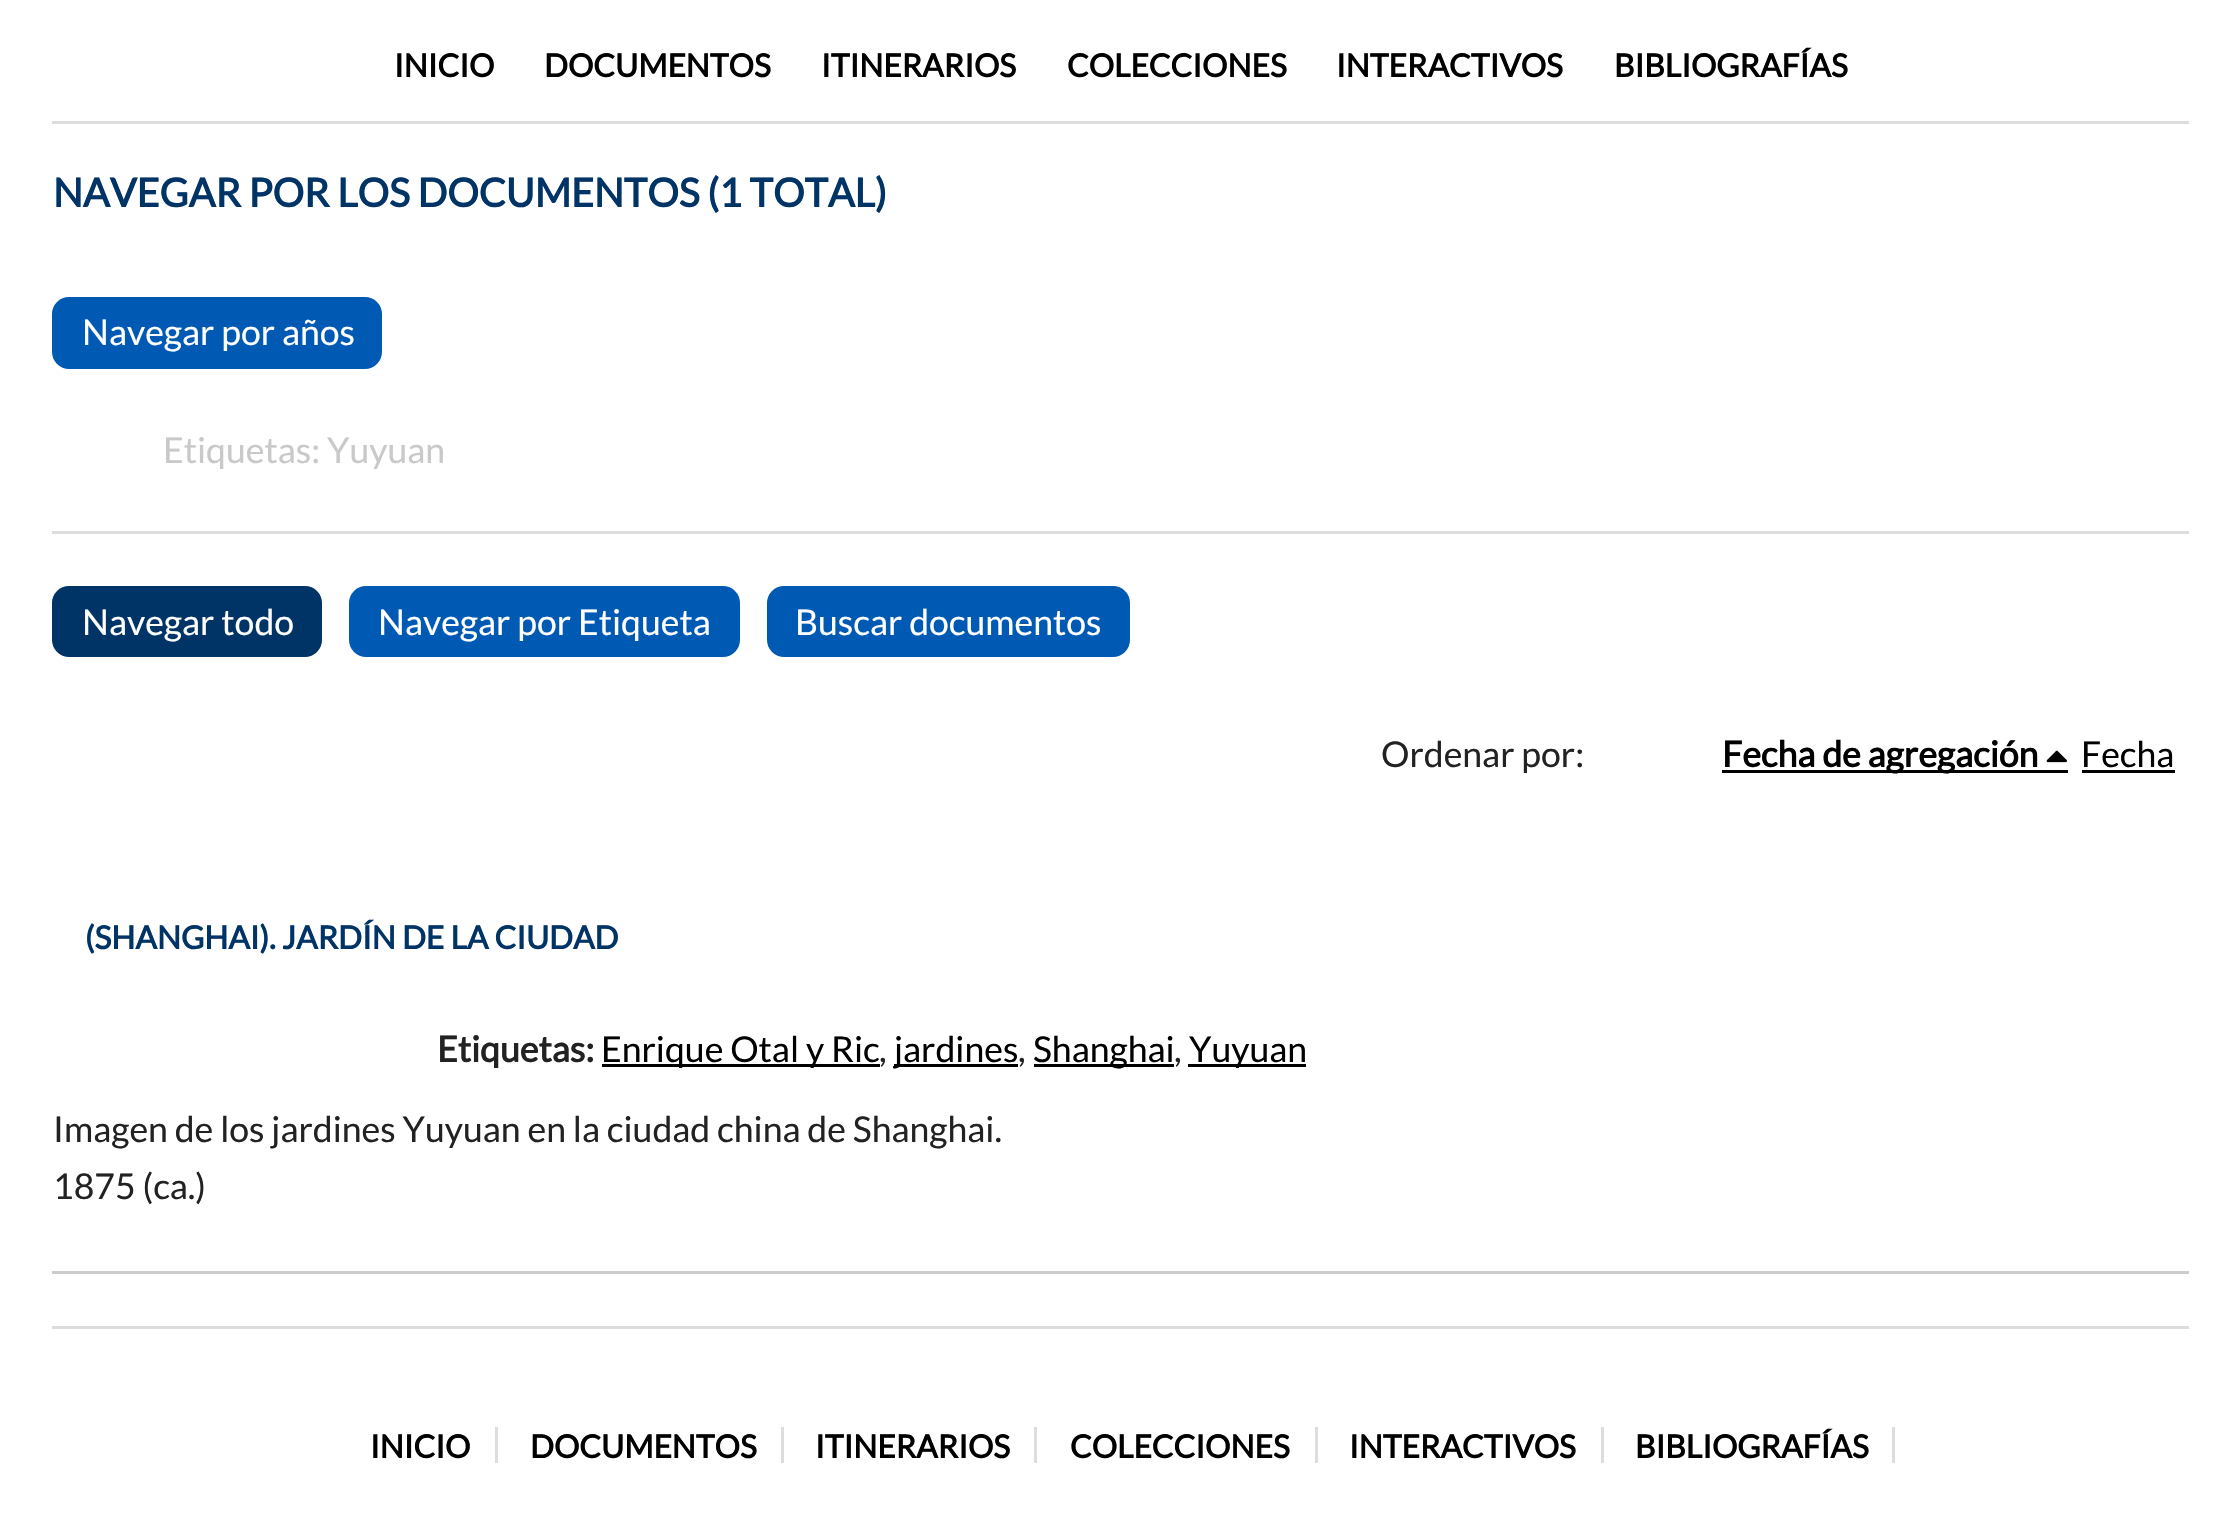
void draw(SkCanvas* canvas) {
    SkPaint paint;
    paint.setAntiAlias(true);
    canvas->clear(0xFFFFFFFF);
    SkFont font1(fontMgr->matchFamilyStyle("Lato", SkFontStyle::Bold()), 31.75f);
    font1.setSubpixel(true);
    paint.setColor(0xFF000000);
    canvas->drawString("INICIO", 394, 77, font1, paint);
    canvas->drawString("DOCUMENTOS", 544, 77, font1, paint);
    canvas->drawString("ITINERARIOS", 821, 77, font1, paint);
    canvas->drawString("COLECCIONES", 1067, 77, font1, paint);
    canvas->drawString("INTERACTIVOS", 1336, 77, font1, paint);
    canvas->drawString("BIBLIOGRAFÍAS", 1614, 77, font1, paint);
    paint.setColor(0xFFDDDDDD);
    canvas->drawRect(SkRect::MakeXYWH(52, 121, 2137, 3), paint);
    canvas->drawRect(SkRect::MakeXYWH(52, 1326, 2137, 3), paint);
    SkFont font2(fontMgr->matchFamilyStyle("Lato", SkFontStyle::Bold()), 39.5f);
    font2.setSubpixel(true);
    paint.setColor(0xFF003366);
    canvas->drawString("NAVEGAR POR LOS DOCUMENTOS (1 TOTAL)", 53, 207, font2, paint);
    paint.setColor(0xFF005AB4);
    canvas->drawRoundRect(SkRect::MakeXYWH(52, 297, 330, 72), 17, 17, paint);
    SkFont font3(fontMgr->matchFamilyStyle("Lato", SkFontStyle::Normal()), 35.6f);
    font3.setSubpixel(true);
    paint.setColor(0xFFFFFFFF);
    canvas->drawString("Navegar por años", 82, 345, font3, paint);
    paint.setColor(0xFFDDDDDD);
    canvas->drawRect(SkRect::MakeXYWH(52, 531, 2137, 3), paint);
    paint.setColor(0xFFC9C9C9);
    canvas->drawString("Etiquetas: Yuyuan", 163, 463, font3, paint);
    paint.setColor(0xFF003366);
    canvas->drawRoundRect(SkRect::MakeXYWH(52, 586, 270, 71), 17, 17, paint);
    paint.setColor(0xFFFFFFFF);
    canvas->drawString("Navegar todo", 82, 635, font3, paint);
    paint.setColor(0xFF005AB4);
    canvas->drawRoundRect(SkRect::MakeXYWH(349, 586, 391, 71), 17, 17, paint);
    paint.setColor(0xFFFFFFFF);
    canvas->drawString("Navegar por Etiqueta", 378, 635, font3, paint);
    paint.setColor(0xFF005AB4);
    canvas->drawRoundRect(SkRect::MakeXYWH(767, 586, 363, 71), 17, 17, paint);
    paint.setColor(0xFFFFFFFF);
    canvas->drawString("Buscar documentos", 795, 635, font3, paint);
    paint.setColor(0xFF222222);
    canvas->drawString("Ordenar por:", 1381, 767, font3, paint);
    paint.setColor(0xFF000000);
    canvas->drawRect(SkRect::MakeXYWH(1722, 770, 346, 3), paint);
    SkFont font4(fontMgr->matchFamilyStyle("Lato", SkFontStyle::Bold()), 35.6f);
    font4.setSubpixel(true);
    canvas->drawString("Fecha de agregación", 1722, 767, font4, paint);
    canvas->drawImageRect(SkImages::DeferredFromEncodedData(SkData::MakeFromFileName("img1.png")), SkRect::MakeXYWH(2046, 750, 21, 13), SkSamplingOptions());
    canvas->drawString("Fecha", 2081, 767, font3, paint);
    canvas->drawRect(SkRect::MakeXYWH(2082, 770, 93, 3), paint);
    paint.setColor(0xFFCCCCCC);
    canvas->drawRect(SkRect::MakeXYWH(52, 1271, 2137, 3), paint);
    paint.setColor(0xFF003366);
    canvas->drawString("(SHANGHAI). JARDÍN DE LA CIUDAD", 85, 949, font1, paint);
    paint.setColor(0xFF222222);
    canvas->drawString("Etiquetas:", 437, 1062, font4, paint);
    paint.setColor(0xFF000000);
    canvas->drawRect(SkRect::MakeXYWH(602, 1064, 278, 3), paint);
    canvas->drawString("Enrique Otal y Ric", 601, 1062, font3, paint);
    paint.setColor(0xFF222222);
    canvas->drawString(",", 879, 1062, font3, paint);
    paint.setColor(0xFF000000);
    canvas->drawRect(SkRect::MakeXYWH(894, 1064, 124, 3), paint);
    canvas->drawString("jardines", 894, 1062, font3, paint);
    paint.setColor(0xFF222222);
    canvas->drawString(",", 1018, 1062, font3, paint);
    paint.setColor(0xFF000000);
    canvas->drawRect(SkRect::MakeXYWH(1034, 1064, 140, 3), paint);
    canvas->drawString("Shanghai", 1033, 1062, font3, paint);
    paint.setColor(0xFF222222);
    canvas->drawString(",", 1174, 1062, font3, paint);
    paint.setColor(0xFF000000);
    canvas->drawRect(SkRect::MakeXYWH(1188, 1064, 118, 3), paint);
    canvas->drawString("Yuyuan", 1189, 1062, font3, paint);
    paint.setColor(0xFF222222);
    canvas->drawString("Imagen de los jardines Yuyuan en la ciudad china de Shanghai.", 53, 1142, font3, paint);
    canvas->drawString("1875 (ca.)", 53, 1199, font3, paint);
    paint.setColor(0xFF000000);
    canvas->drawString("INICIO", 370, 1458, font1, paint);
    paint.setColor(0xFFDDDDDD);
    canvas->drawRect(SkRect::MakeXYWH(495, 1427, 3, 36), paint);
    paint.setColor(0xFF000000);
    canvas->drawString("DOCUMENTOS", 530, 1458, font1, paint);
    paint.setColor(0xFFDDDDDD);
    canvas->drawRect(SkRect::MakeXYWH(781, 1427, 3, 36), paint);
    paint.setColor(0xFF000000);
    canvas->drawString("ITINERARIOS", 815, 1458, font1, paint);
    paint.setColor(0xFFDDDDDD);
    canvas->drawRect(SkRect::MakeXYWH(1034, 1427, 3, 36), paint);
    paint.setColor(0xFF000000);
    canvas->drawString("COLECCIONES", 1070, 1458, font1, paint);
    paint.setColor(0xFFDDDDDD);
    canvas->drawRect(SkRect::MakeXYWH(1315, 1427, 3, 36), paint);
    paint.setColor(0xFF000000);
    canvas->drawString("INTERACTIVOS", 1349, 1458, font1, paint);
    paint.setColor(0xFFDDDDDD);
    canvas->drawRect(SkRect::MakeXYWH(1601, 1427, 3, 36), paint);
    paint.setColor(0xFF000000);
    canvas->drawString("BIBLIOGRAFÍAS", 1635, 1458, font1, paint);
    paint.setColor(0xFFDDDDDD);
    canvas->drawRect(SkRect::MakeXYWH(1892, 1427, 3, 36), paint);
}
